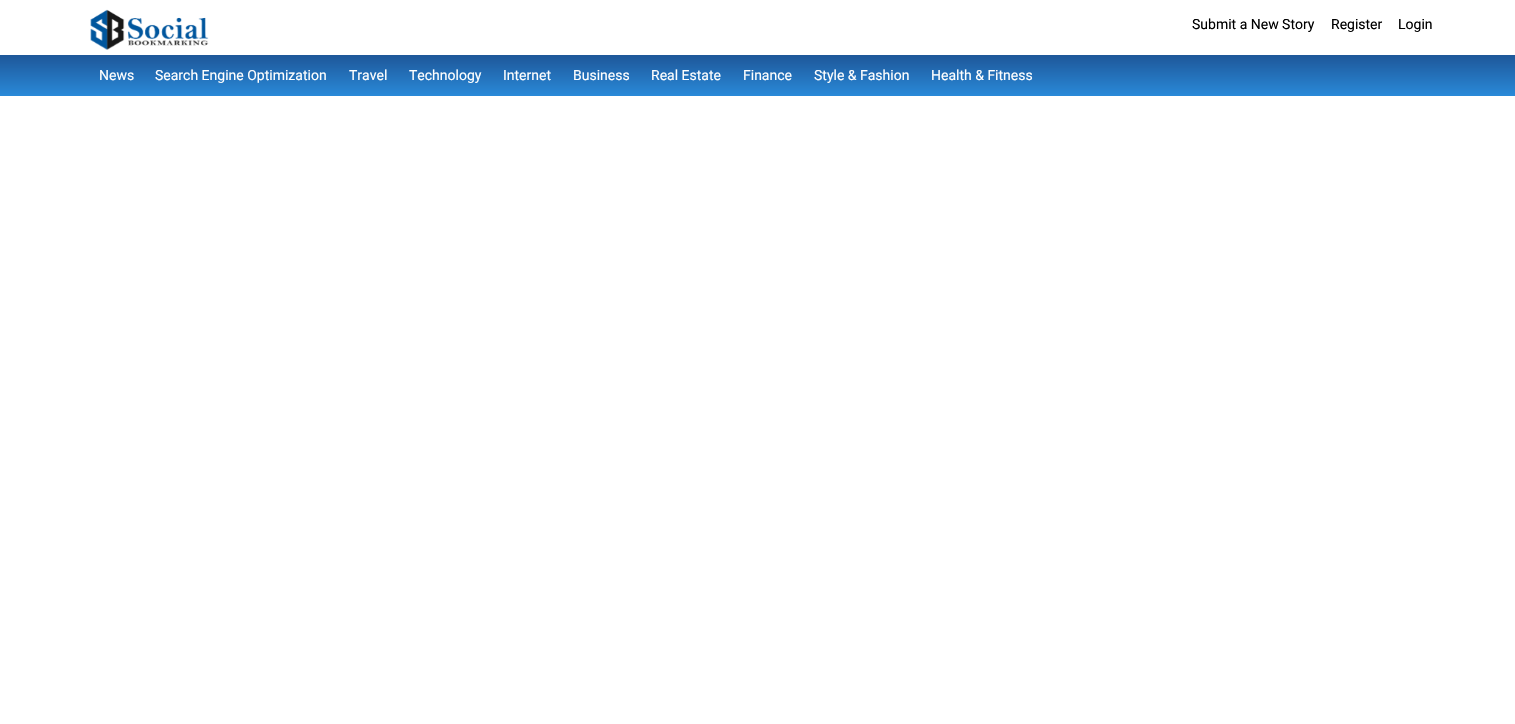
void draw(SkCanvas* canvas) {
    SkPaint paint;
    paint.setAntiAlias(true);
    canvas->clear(0xFFFFFFFF);
    canvas->drawImageRect(SkImages::DeferredFromEncodedData(SkData::MakeFromFileName("img1.png")), SkRect::MakeXYWH(90, 9, 119, 41), SkSamplingOptions());
    SkFont font1(fontMgr->matchFamilyStyle("Roboto", SkFontStyle::Normal()), 14);
    font1.setSubpixel(true);
    paint.setColor(0xFF000000);
    canvas->drawString("Submit a New Story", 1192, 29, font1, paint);
    canvas->drawString("Register", 1331, 29, font1, paint);
    canvas->drawString("Login", 1398, 29, font1, paint);
    {
        const SkColor colors[] = {0xFF1E5799, 0xFF2989D8};
        const float stops[] = {0, 0.99f};
        const SkPoint ends[] = {{758, 55}, {758, 96}};
        paint.setShader(SkGradientShader::MakeLinear(ends, colors, stops, 2, SkTileMode::kClamp));
        paint.setAlpha(255);
    }
    canvas->drawRect(SkRect::MakeXYWH(0, 55, 1515, 41), paint);
    paint.setShader(nullptr);
    paint.setColor(0xFFFFFFFF);
    canvas->drawString("News", 99, 80, font1, paint);
    canvas->drawString("Search Engine Optimization", 155, 80, font1, paint);
    canvas->drawString("Travel", 349, 80, font1, paint);
    canvas->drawString("Technology", 409, 80, font1, paint);
    canvas->drawString("Internet", 503, 80, font1, paint);
    canvas->drawString("Business", 573, 80, font1, paint);
    canvas->drawString("Real Estate", 651, 80, font1, paint);
    canvas->drawString("Finance", 743, 80, font1, paint);
    canvas->drawString("Style & Fashion", 814, 80, font1, paint);
    canvas->drawString("Health & Fitness", 931, 80, font1, paint);
}
